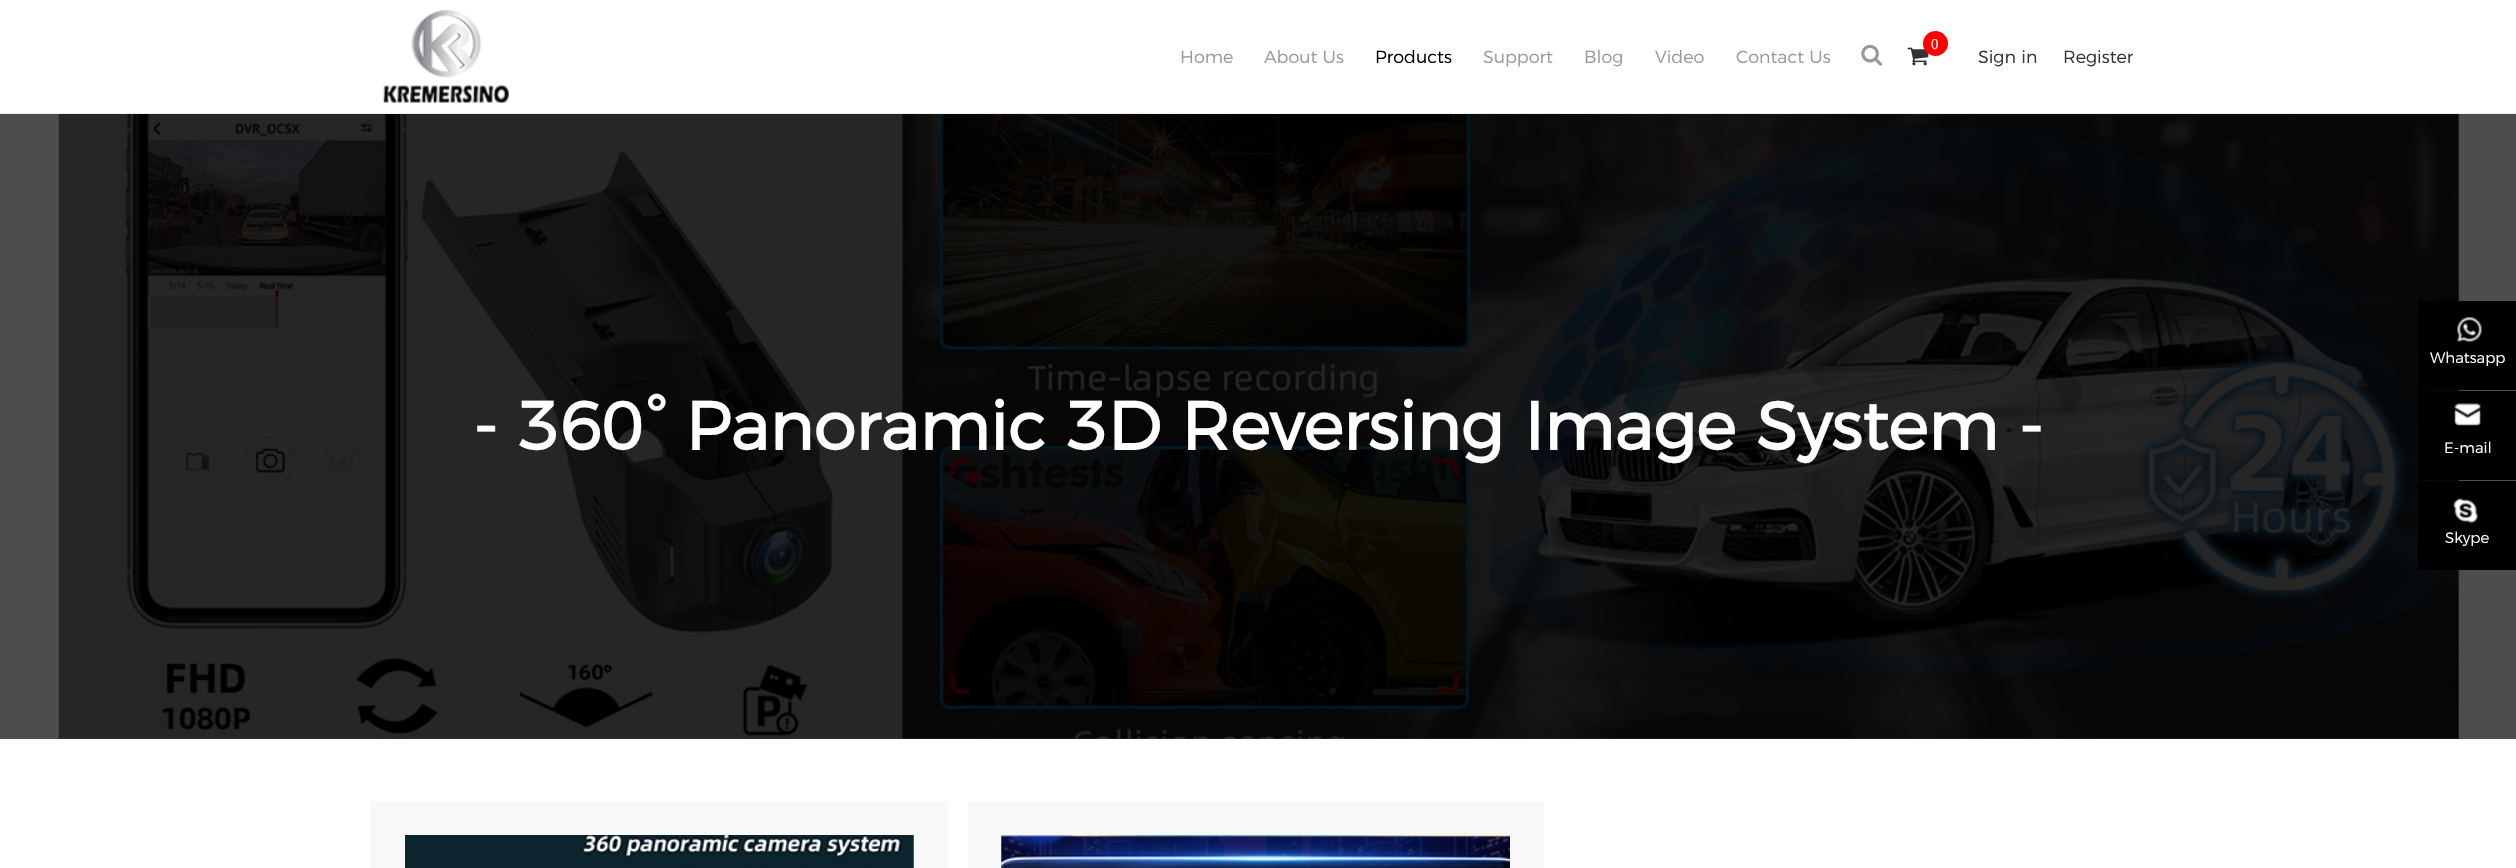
void draw(SkCanvas* canvas) {
    SkPaint paint;
    paint.setAntiAlias(true);
    canvas->clear(0xFFFFFFFF);
    paint.setColor(0xFF4D4D4D);
    canvas->drawRect(SkRect::MakeXYWH(0, 114, 2516, 625), paint);
    paint.setColor(0xFFEEEEEE);
    canvas->drawRect(SkRect::MakeXYWH(0, 113, 2516, 1), paint);
    canvas->drawImageRect(SkImages::DeferredFromEncodedData(SkData::MakeFromFileName("img1.png")), SkRect::MakeXYWH(383, 10, 126, 93), SkSamplingOptions());
    SkFont font1(fontMgr->matchFamilyStyle("Montserrat", SkFontStyle(300, SkFontStyle::kNormal_Width, SkFontStyle::kUpright_Slant)), 17.5f);
    font1.setSubpixel(true);
    paint.setColor(0xFF999999);
    canvas->drawString("Home", 1180, 63, font1, paint);
    canvas->drawString("About Us", 1264, 63, font1, paint);
    paint.setColor(0xFF000000);
    canvas->drawString("Products", 1375, 63, font1, paint);
    paint.setColor(0xFF999999);
    canvas->drawString("Support", 1483, 63, font1, paint);
    canvas->drawString("Blog", 1584, 63, font1, paint);
    canvas->drawString("Video", 1655, 63, font1, paint);
    canvas->drawString("Contact Us", 1736, 63, font1, paint);
    canvas->drawImageRect(SkImages::DeferredFromEncodedData(SkData::MakeFromFileName("img2.png")), SkRect::MakeXYWH(1861, 44, 22, 22), SkSamplingOptions());
    canvas->drawImageRect(SkImages::DeferredFromEncodedData(SkData::MakeFromFileName("img3.png")), SkRect::MakeXYWH(1907, 47, 22, 19), SkSamplingOptions());
    paint.setColor(0xFFFF0000);
    canvas->drawCircle(1935.5f, 43.5f, 12.5f, paint);
    SkFont font2(fontMgr->matchFamilyStyle("Liberation Serif", SkFontStyle::Normal()), 15);
    font2.setSubpixel(true);
    paint.setColor(0xFFFFFFFF);
    canvas->drawString("0", 1931, 49, font2, paint);
    paint.setColor(0xFF333333);
    canvas->drawString("Sign in", 1978, 63, font1, paint);
    canvas->drawString("Register", 2063, 63, font1, paint);
    canvas->drawImageRect(SkImages::DeferredFromEncodedData(SkData::MakeFromFileName("img4.png")), SkRect::MakeXYWH(58, 114, 2401, 625), SkSamplingOptions());
    SkFont font3(fontMgr->matchFamilyStyle("Montserrat", SkFontStyle::Bold()), 67.5f);
    font3.setSubpixel(true);
    paint.setColor(0xFFFFFFFF);
    canvas->drawString("- 360° Panoramic 3D Reversing Image System -", 473, 450, font3, paint);
    paint.setColor(0xFF000000);
    canvas->drawRect(SkRect::MakeXYWH(2418, 301, 98, 89), paint);
    canvas->drawImageRect(SkImages::DeferredFromEncodedData(SkData::MakeFromFileName("img5.png")), SkRect::MakeXYWH(2456, 317, 26, 26), SkSamplingOptions());
    SkFont font4(fontMgr->matchFamilyStyle("Montserrat", SkFontStyle(300, SkFontStyle::kNormal_Width, SkFontStyle::kUpright_Slant)), 15);
    font4.setSubpixel(true);
    paint.setColor(0xFFFFFFFF);
    canvas->drawString("Whatsapp", 2430, 363, font4, paint);
    paint.setColor(0xFF000000);
    canvas->drawRect(SkRect::MakeXYWH(2418, 391, 98, 89), paint);
    canvas->drawImageRect(SkImages::DeferredFromEncodedData(SkData::MakeFromFileName("img6.png")), SkRect::MakeXYWH(2454, 403, 27, 23), SkSamplingOptions());
    paint.setColor(0xFFFFFFFF);
    canvas->drawString("E-mail", 2444, 453, font4, paint);
    paint.setColor(0xFF000000);
    canvas->drawRect(SkRect::MakeXYWH(2418, 481, 98, 89), paint);
    canvas->drawImageRect(SkImages::DeferredFromEncodedData(SkData::MakeFromFileName("img7.png")), SkRect::MakeXYWH(2453, 498, 25, 26), SkSamplingOptions());
    paint.setColor(0xFFFFFFFF);
    canvas->drawString("Skype", 2445, 543, font4, paint);
    paint.setColor(0xFFF8F8F8);
    canvas->drawRect(SkRect::MakeXYWH(371, 801, 577, 67), paint);
    canvas->drawImageRect(SkImages::DeferredFromEncodedData(SkData::MakeFromFileName("img8.png")), SkRect::MakeXYWH(405, 835, 509, 33), SkSamplingOptions());
    canvas->drawRect(SkRect::MakeXYWH(968, 801, 576, 67), paint);
    canvas->drawImageRect(SkImages::DeferredFromEncodedData(SkData::MakeFromFileName("img9.png")), SkRect::MakeXYWH(1001, 835, 509, 33), SkSamplingOptions());
}
